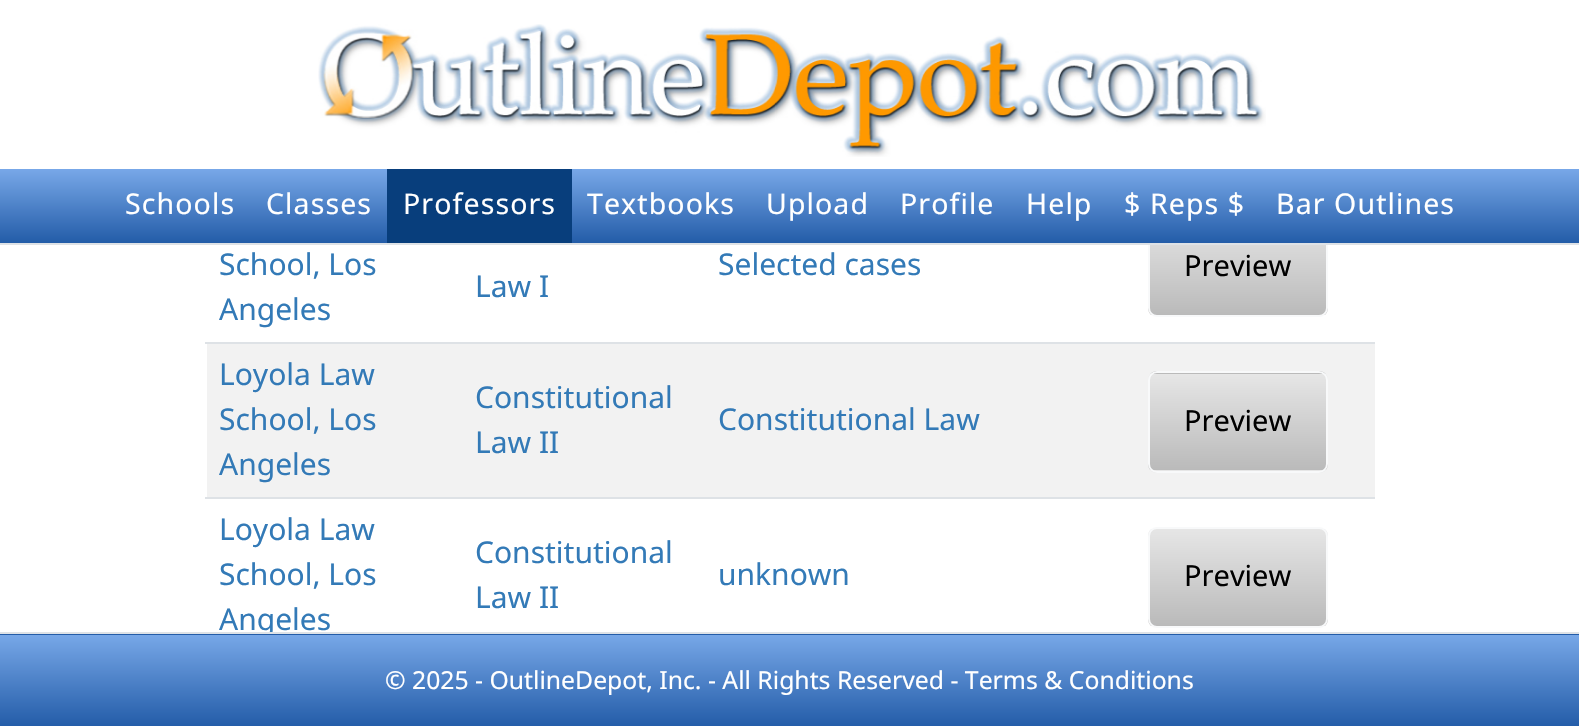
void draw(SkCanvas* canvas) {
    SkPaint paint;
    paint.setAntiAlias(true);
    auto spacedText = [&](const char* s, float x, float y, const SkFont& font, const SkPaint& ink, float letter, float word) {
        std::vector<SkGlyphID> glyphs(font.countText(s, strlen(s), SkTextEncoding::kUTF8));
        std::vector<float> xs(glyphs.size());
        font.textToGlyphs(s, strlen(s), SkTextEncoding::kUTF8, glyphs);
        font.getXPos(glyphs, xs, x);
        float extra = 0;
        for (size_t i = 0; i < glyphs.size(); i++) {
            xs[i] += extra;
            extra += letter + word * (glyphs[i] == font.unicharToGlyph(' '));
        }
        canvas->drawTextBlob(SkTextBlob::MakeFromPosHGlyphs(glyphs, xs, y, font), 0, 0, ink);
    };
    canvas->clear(0xFFFFFFFF);
    canvas->drawImageRect(SkImages::DeferredFromEncodedData(SkData::MakeFromFileName("img1.png")), SkRect::MakeXYWH(318, 24, 948, 133), SkSamplingOptions());
    canvas->save();
    canvas->clipPath(SkPathBuilder().moveTo(1157, 216).lineTo(1319, 216).cubicTo(1324, 216, 1328, 220, 1328, 225).lineTo(1328, 308).cubicTo(1328, 313, 1324, 317, 1319, 317).lineTo(1157, 317).cubicTo(1152, 317, 1148, 313, 1148, 308).lineTo(1148, 225).cubicTo(1148, 220, 1152, 216, 1157, 216).close().detach(), true);
    {
        const SkColor colors[] = {0xFFE6E6E6, 0xFFBABABA};
        const float stops[] = {0, 1};
        const SkPoint ends[] = {{1238, 218}, {1238, 315}};
        paint.setShader(SkGradientShader::MakeLinear(ends, colors, stops, 2, SkTileMode::kClamp));
        paint.setAlpha(255);
    }
    canvas->drawRect(SkRect::MakeXYWH(1148, 245, 180, 70), paint);
    canvas->restore();
    paint.setStyle(SkPaint::kStroke_Style);
    paint.setStrokeWidth(2);
    paint.setShader(nullptr);
    paint.setColor(0xFFF8F9FA);
    canvas->drawRoundRect(SkRect::MakeXYWH(1149, 217, 178, 99), 8, 8, paint);
    paint.setStyle(SkPaint::kFill_Style);
    {
        const SkColor colors[] = {0xFF78A8E8, 0xFF235CA8};
        const float stops[] = {0, 1};
        const SkPoint ends[] = {{790, 169}, {790, 243}};
        paint.setShader(SkGradientShader::MakeLinear(ends, colors, stops, 2, SkTileMode::kClamp));
        paint.setAlpha(255);
    }
    canvas->drawRect(SkRect::MakeXYWH(0, 169, 1579, 74), paint);
    paint.setShader(nullptr);
    paint.setColor(0xFFDEE2E6);
    canvas->drawRect(SkRect::MakeXYWH(0, 243, 1579, 2), paint);
    SkFont font1(fontMgr->matchFamilyStyle("Noto Sans", SkFontStyle::Normal()), 28.5f);
    font1.setSubpixel(true);
    paint.setColor(0xFFFFFFFF);
    spacedText("Schools", 125, 214, font1, paint, 1.1f, 0);
    spacedText("Classes", 266, 214, font1, paint, 1.1f, 0);
    paint.setColor(0xFF083E7C);
    canvas->drawRect(SkRect::MakeXYWH(387, 169, 185, 74), paint);
    paint.setColor(0xFFFFFFFF);
    spacedText("Professors", 403, 214, font1, paint, 1.1f, 0);
    spacedText("Textbooks", 587, 214, font1, paint, 1.1f, 0);
    spacedText("Upload", 766, 214, font1, paint, 1.1f, 0);
    spacedText("Profile", 900, 214, font1, paint, 1.1f, 0);
    spacedText("Help", 1026, 214, font1, paint, 1.1f, 0);
    spacedText("$ Reps $", 1124, 214, font1, paint, 1.1f, 0);
    spacedText("Bar Outlines", 1276, 214, font1, paint, 1.1f, 0);
    SkFont font2(fontMgr->matchFamilyStyle("Noto Sans", SkFontStyle::Normal()), 30);
    font2.setSubpixel(true);
    paint.setColor(0xFF337AB7);
    canvas->drawString("School, Los", 219, 275, font2, paint);
    canvas->drawString("Angeles", 219, 320, font2, paint);
    canvas->drawString("Selected cases", 718, 275, font2, paint);
    paint.setColor(0xFFDEE2E6);
    canvas->drawRect(SkRect::MakeXYWH(205, 342, 1170, 2), paint);
    SkFont font3(fontMgr->matchFamilyStyle("Noto Sans", SkFontStyle::Normal()), 29);
    font3.setSubpixel(true);
    paint.setColor(0xFF000000);
    canvas->drawString("Preview", 1184, 276, font3, paint);
    paint.setColor(0xFF337AB7);
    canvas->drawString("Law I", 475, 297, font2, paint);
    paint.setColor(0xFFF2F2F2);
    canvas->drawRect(SkRect::MakeXYWH(207, 344, 1168, 153), paint);
    paint.setColor(0xFF337AB7);
    canvas->drawString("Loyola Law", 219, 385, font2, paint);
    canvas->drawString("School, Los", 219, 430, font2, paint);
    canvas->drawString("Angeles", 219, 475, font2, paint);
    canvas->drawString("Constitutional", 475, 408, font2, paint);
    canvas->drawString("Law II", 475, 453, font2, paint);
    canvas->drawString("Constitutional Law", 718, 430, font2, paint);
    paint.setColor(0xFFDEE2E6);
    canvas->drawRect(SkRect::MakeXYWH(205, 497, 1170, 2), paint);
    canvas->save();
    canvas->clipPath(SkPathBuilder().moveTo(1157, 371).lineTo(1319, 371).cubicTo(1324, 371, 1328, 375, 1328, 380).lineTo(1328, 464).cubicTo(1328, 469, 1324, 473, 1319, 473).lineTo(1157, 473).cubicTo(1152, 473, 1148, 469, 1148, 464).lineTo(1148, 380).cubicTo(1148, 375, 1152, 371, 1157, 371).close().detach(), true);
    {
        const SkColor colors[] = {0xFFE6E6E6, 0xFFBABABA};
        const float stops[] = {0, 1};
        const SkPoint ends[] = {{1238, 277}, {1238, 374}};
        paint.setShader(SkGradientShader::MakeLinear(ends, colors, stops, 2, SkTileMode::kClamp));
        paint.setAlpha(255);
    }
    canvas->drawRect(SkRect::MakeXYWH(1148, 371, 180, 3), paint);
    {
        const SkColor colors[] = {0xFFE6E6E6, 0xFFBABABA};
        const float stops[] = {0, 1};
        const SkPoint ends[] = {{1238, 374}, {1238, 470}};
        paint.setShader(SkGradientShader::MakeLinear(ends, colors, stops, 2, SkTileMode::kClamp));
        paint.setAlpha(255);
    }
    canvas->drawRect(SkRect::MakeXYWH(1148, 374, 180, 96), paint);
    {
        const SkColor colors[] = {0xFFE6E6E6, 0xFFBABABA};
        const float stops[] = {0, 1};
        const SkPoint ends[] = {{1238, 470}, {1238, 567}};
        paint.setShader(SkGradientShader::MakeLinear(ends, colors, stops, 2, SkTileMode::kClamp));
        paint.setAlpha(255);
    }
    canvas->drawRect(SkRect::MakeXYWH(1148, 470, 180, 3), paint);
    canvas->restore();
    paint.setStyle(SkPaint::kStroke_Style);
    paint.setShader(nullptr);
    paint.setColor(0xFFF8F9FA);
    canvas->drawRoundRect(SkRect::MakeXYWH(1149, 372, 178, 100), 8, 8, paint);
    paint.setStyle(SkPaint::kFill_Style);
    paint.setColor(0xFF000000);
    canvas->drawString("Preview", 1184, 431, font3, paint);
    paint.setColor(0xFF337AB7);
    canvas->drawString("Loyola Law", 219, 540, font2, paint);
    canvas->drawString("School, Los", 219, 585, font2, paint);
    canvas->drawString("Angeles", 219, 630, font2, paint);
    canvas->drawString("Constitutional", 475, 563, font2, paint);
    canvas->drawString("Law II", 475, 608, font2, paint);
    canvas->drawString("unknown", 718, 585, font2, paint);
    canvas->save();
    canvas->clipPath(SkPathBuilder().moveTo(1157, 527).lineTo(1319, 527).cubicTo(1324, 527, 1328, 531, 1328, 536).lineTo(1328, 619).cubicTo(1328, 624, 1324, 628, 1319, 628).lineTo(1157, 628).cubicTo(1152, 628, 1148, 624, 1148, 619).lineTo(1148, 536).cubicTo(1148, 531, 1152, 527, 1157, 527).close().detach(), true);
    {
        const SkColor colors[] = {0xFFE6E6E6, 0xFFBABABA};
        const float stops[] = {0, 1};
        const SkPoint ends[] = {{1238, 529}, {1238, 626}};
        paint.setShader(SkGradientShader::MakeLinear(ends, colors, stops, 2, SkTileMode::kClamp));
        paint.setAlpha(255);
    }
    canvas->drawRect(SkRect::MakeXYWH(1148, 529, 180, 97), paint);
    canvas->restore();
    paint.setStyle(SkPaint::kStroke_Style);
    paint.setShader(nullptr);
    paint.setColor(0xFFF8F9FA);
    canvas->drawRoundRect(SkRect::MakeXYWH(1149, 528, 178, 99), 8, 8, paint);
    paint.setStyle(SkPaint::kFill_Style);
    paint.setColor(0xFF000000);
    canvas->drawString("Preview", 1184, 586, font3, paint);
    {
        const SkColor colors[] = {0xFF78A8E8, 0xFF235CA8};
        const float stops[] = {0, 1};
        const SkPoint ends[] = {{790, 542}, {790, 635}};
        paint.setShader(SkGradientShader::MakeLinear(ends, colors, stops, 2, SkTileMode::kClamp));
        paint.setAlpha(255);
    }
    canvas->drawRect(SkRect::MakeXYWH(0, 634, 1579, 1), paint);
    {
        const SkColor colors[] = {0xFF78A8E8, 0xFF235CA8};
        const float stops[] = {0, 1};
        const SkPoint ends[] = {{790, 634}, {790, 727}};
        paint.setShader(SkGradientShader::MakeLinear(ends, colors, stops, 2, SkTileMode::kClamp));
        paint.setAlpha(255);
    }
    canvas->drawRect(SkRect::MakeXYWH(0, 635, 1579, 91), paint);
    paint.setShader(nullptr);
    paint.setColor(0xFFDEE2E6);
    canvas->drawRect(SkRect::MakeXYWH(0, 632, 1579, 2), paint);
    SkFont font4(fontMgr->matchFamilyStyle("Noto Sans", SkFontStyle::Normal()), 24.75f);
    font4.setSubpixel(true);
    paint.setColor(0xFFFFFFFF);
    canvas->drawString("© 2025 - OutlineDepot, Inc. - All Rights Reserved - Terms & Conditions", 385, 689, font4, paint);
}
